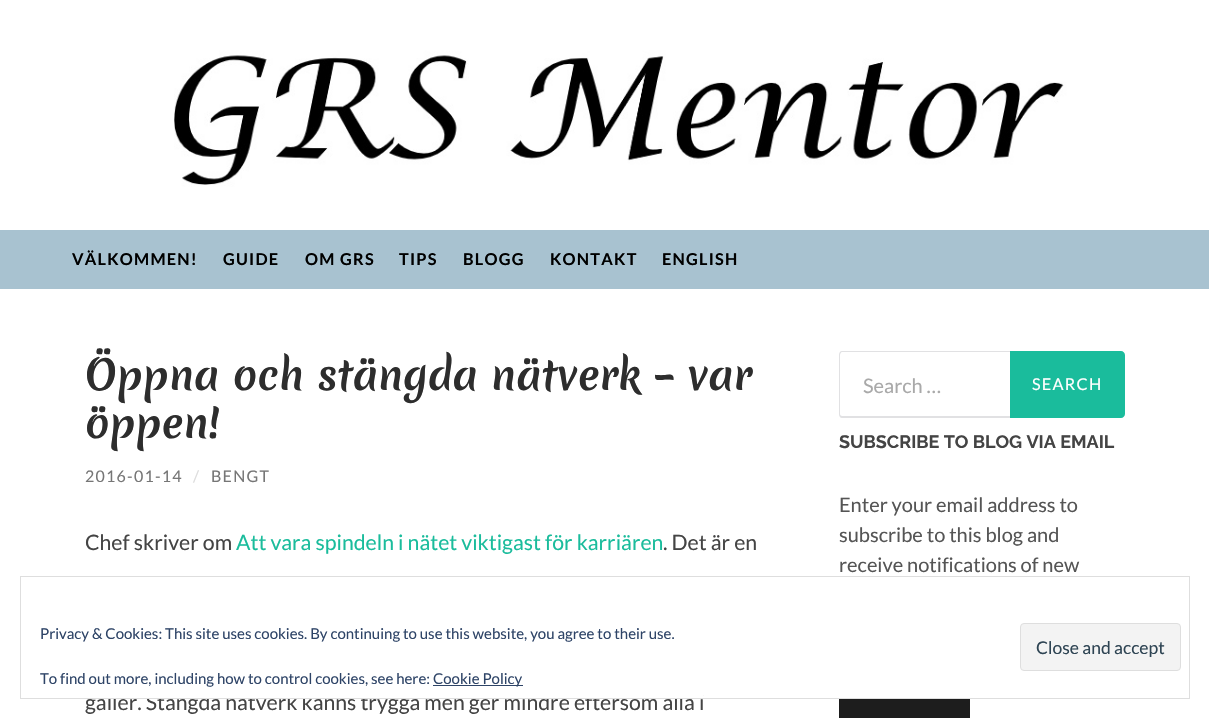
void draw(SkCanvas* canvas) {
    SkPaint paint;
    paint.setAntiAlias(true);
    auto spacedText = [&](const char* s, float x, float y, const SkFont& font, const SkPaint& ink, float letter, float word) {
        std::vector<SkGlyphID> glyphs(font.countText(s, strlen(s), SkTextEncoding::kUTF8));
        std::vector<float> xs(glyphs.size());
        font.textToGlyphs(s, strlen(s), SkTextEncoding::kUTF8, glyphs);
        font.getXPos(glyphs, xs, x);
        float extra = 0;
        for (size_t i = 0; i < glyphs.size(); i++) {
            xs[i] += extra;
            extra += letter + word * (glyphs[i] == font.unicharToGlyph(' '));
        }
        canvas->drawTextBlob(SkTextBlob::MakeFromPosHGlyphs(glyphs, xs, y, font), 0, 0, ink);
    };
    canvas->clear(0xFFFFFFFF);
    canvas->drawImageRect(SkImages::DeferredFromEncodedData(SkData::MakeFromFileName("img1.png")), SkRect::MakeXYWH(0, 0, 1209, 230), SkSamplingOptions());
    paint.setColor(0xFFA8C2D0);
    canvas->drawRect(SkRect::MakeXYWH(0, 230, 1209, 59), paint);
    SkFont font1(fontMgr->matchFamilyStyle("Lato", SkFontStyle::Bold()), 16.25f);
    font1.setSubpixel(true);
    paint.setColor(0xFF000000);
    spacedText("VÄLKOMMEN!", 72, 265, font1, paint, 1.25f, 0);
    spacedText("GUIDE", 223, 265, font1, paint, 1.25f, 0);
    spacedText("OM GRS", 305, 265, font1, paint, 1.25f, 0);
    spacedText("TIPS", 399, 265, font1, paint, 1.25f, 0);
    spacedText("BLOGG", 463, 265, font1, paint, 1.25f, 0);
    spacedText("KONTAKT", 550, 265, font1, paint, 1.25f, 0);
    spacedText("ENGLISH", 662, 265, font1, paint, 1.25f, 0);
    SkFont font2(fontMgr->matchFamilyStyle("Merienda", SkFontStyle::Bold()), 40);
    font2.setSubpixel(true);
    paint.setColor(0xFF2D2D2D);
    canvas->drawString("Öppna och stängda nätverk – var", 85, 390, font2, paint);
    canvas->drawString("öppen!", 85, 438, font2, paint);
    SkFont font3(fontMgr->matchFamilyStyle("Lato", SkFontStyle::Normal()), 16);
    font3.setSubpixel(true);
    paint.setColor(0xFF767676);
    spacedText("2016-01-14", 85, 482, font3, paint, 1.25f, 0);
    paint.setColor(0xFFDDDDDD);
    spacedText("/", 193, 482, font3, paint, 1.25f, 0);
    paint.setColor(0xFF767676);
    spacedText("BENGT", 211, 482, font3, paint, 1.25f, 0);
    SkFont font4(fontMgr->matchFamilyStyle("Lato", SkFontStyle::Normal()), 21.25f);
    font4.setSubpixel(true);
    paint.setColor(0xFF444444);
    canvas->drawString("Chef skriver om", 85, 550, font4, paint);
    paint.setColor(0xFF1ABC9C);
    canvas->drawString("Att vara spindeln i nätet viktigast för karriären", 236, 550, font4, paint);
    paint.setColor(0xFF444444);
    canvas->drawString(". Det är en", 663, 550, font4, paint);
    canvas->drawString("gäller. Stängda nätverk känns trygga men ger mindre eftersom alla i", 85, 710, font4, paint);
    paint.setColor(0xFFE1E1E3);
    canvas->drawPath(SkPathBuilder(SkPathFillType::kEvenOdd).moveTo(842, 351).lineTo(1010, 351).lineTo(1010, 418).lineTo(842, 418).cubicTo(840, 418, 839, 416, 839, 414).lineTo(839, 355).cubicTo(839, 353, 840, 351, 842, 351).close().moveTo(842, 352).lineTo(1010, 352).lineTo(1010, 416).lineTo(842, 416).cubicTo(841, 416, 840, 415, 840, 414).lineTo(840, 355).cubicTo(840, 354, 841, 352, 842, 352).close().detach(), paint);
    SkFont font5(fontMgr->matchFamilyStyle("Lato", SkFontStyle::Normal()), 20);
    font5.setSubpixel(true);
    paint.setColor(0xFFA9A9A9);
    canvas->drawString("Search …", 863, 393, font5, paint);
    paint.setColor(0xFF1ABC9C);
    canvas->drawPath(SkPathBuilder().moveTo(1010, 351).lineTo(1121, 351).cubicTo(1123, 351, 1125, 353, 1125, 355).lineTo(1125, 414).cubicTo(1125, 416, 1123, 418, 1121, 418).lineTo(1010, 418).close().detach(), paint);
    SkFont font6(fontMgr->matchFamilyStyle("Lato", SkFontStyle::Normal()), 16.25f);
    font6.setSubpixel(true);
    paint.setColor(0xFFFFFFFF);
    spacedText("SEARCH", 1032, 390, font6, paint, 1.25f, 0);
    SkFont font7(fontMgr->matchFamilyStyle("Raleway", SkFontStyle(100, SkFontStyle::kNormal_Width, SkFontStyle::kUpright_Slant)), 18);
    font7.setSubpixel(true);
    paint.setColor(0xFF444444);
    canvas->drawString("SUBSCRIBE TO BLOG VIA EMAIL", 839, 448, font7, paint);
    paint.setColor(0xFF555555);
    canvas->drawString("Enter your email address to", 839, 512, font5, paint);
    canvas->drawString("subscribe to this blog and", 839, 542, font5, paint);
    canvas->drawString("receive notifications of new", 839, 572, font5, paint);
    paint.setColor(0xFF1D1D1D);
    canvas->drawRect(SkRect::MakeXYWH(839, 699, 131, 19), paint);
    paint.setColor(0xFFFFFFFF);
    canvas->drawRect(SkRect::MakeXYWH(98, 694, 605, 4), paint);
    paint.setStyle(SkPaint::kStroke_Style);
    paint.setStrokeWidth(1);
    paint.setColor(0xFFDEDEDE);
    canvas->drawRect(SkRect::MakeXYWH(20.5f, 576.5f, 1169, 122), paint);
    SkFont font8(fontMgr->matchFamilyStyle("Lato", SkFontStyle::Normal()), 15);
    font8.setSubpixel(true);
    paint.setStyle(SkPaint::kFill_Style);
    paint.setColor(0xFF2E4467);
    canvas->drawString("Privacy & Cookies: This site uses cookies. By continuing to use this website, you agree to their use.", 40, 639, font8, paint);
    paint.setColor(0xFFF3F3F3);
    canvas->drawRoundRect(SkRect::MakeXYWH(1020.5f, 623.5f, 160, 47), 3.5f, 3.5f, paint);
    paint.setStyle(SkPaint::kStroke_Style);
    paint.setColor(0xFFDEDEDE);
    canvas->drawRoundRect(SkRect::MakeXYWH(1020.5f, 623.5f, 160, 47), 3.5f, 3.5f, paint);
    SkFont font9(fontMgr->matchFamilyStyle("Lato", SkFontStyle::Normal()), 17.5f);
    font9.setSubpixel(true);
    paint.setStyle(SkPaint::kFill_Style);
    paint.setColor(0xFF2E4453);
    canvas->drawString("Close and accept", 1036, 654, font9, paint);
    paint.setColor(0xFF2E4467);
    canvas->drawString("To find out more, including how to control cookies, see here:", 40, 684, font8, paint);
    canvas->drawRect(SkRect::MakeXYWH(433, 685, 90, 1), paint);
    canvas->drawString("Cookie Policy", 433, 684, font8, paint);
}
